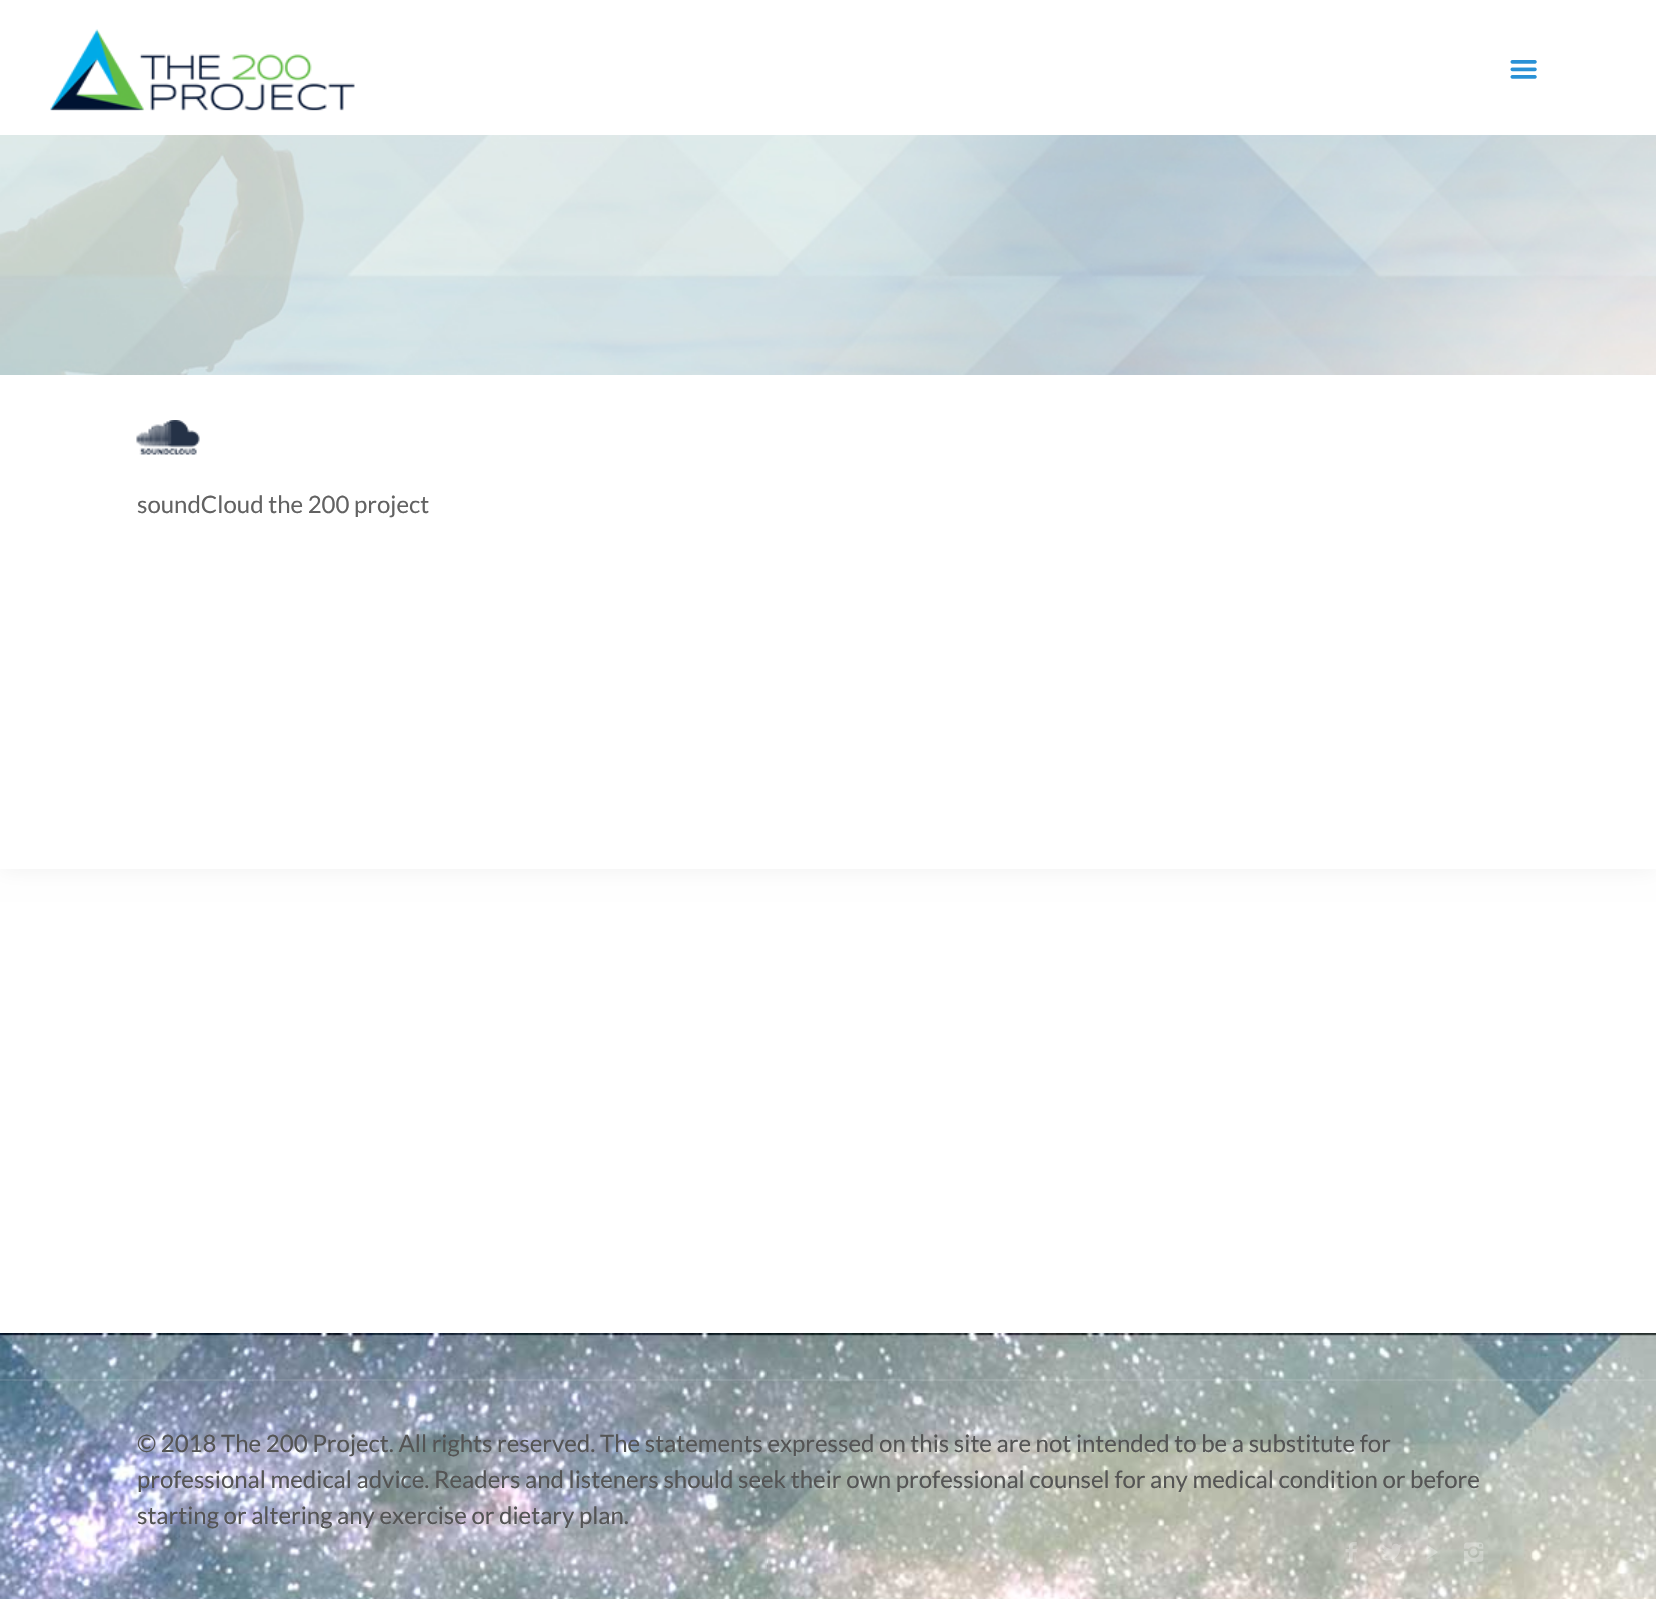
void draw(SkCanvas* canvas) {
    SkPaint paint;
    paint.setAntiAlias(true);
    canvas->clear(0xFFFFFFFF);
    paint.setColor(0x0F000000);
    paint.setMaskFilter(SkMaskFilter::MakeBlur(kNormal_SkBlurStyle, 11));
    canvas->drawRect(SkRect::MakeXYWH(0, 0, 1656, 869), paint);
    paint.setMaskFilter(nullptr);
    paint.setColor(0xFFFFFFFF);
    canvas->drawRect(SkRect::MakeXYWH(0, 375, 1656, 494), paint);
    canvas->drawImageRect(SkImages::DeferredFromEncodedData(SkData::MakeFromFileName("img1.png")), SkRect::MakeXYWH(0, 135, 1656, 240), SkSamplingOptions());
    canvas->drawRect(SkRect::MakeXYWH(0, 0, 1656, 135), paint);
    canvas->drawImageRect(SkImages::DeferredFromEncodedData(SkData::MakeFromFileName("img2.png")), SkRect::MakeXYWH(50, 29, 305, 82), SkSamplingOptions());
    canvas->drawImageRect(SkImages::DeferredFromEncodedData(SkData::MakeFromFileName("img3.png")), SkRect::MakeXYWH(1510, 60, 27, 19), SkSamplingOptions());
    canvas->drawImageRect(SkImages::DeferredFromEncodedData(SkData::MakeFromFileName("img4.png")), SkRect::MakeXYWH(136, 420, 64, 35), SkSamplingOptions());
    SkFont font1(fontMgr->matchFamilyStyle("Lato", SkFontStyle::Normal()), 24);
    font1.setSubpixel(true);
    paint.setColor(0xFF626262);
    canvas->drawString("soundCloud the 200 project", 137, 513, font1, paint);
    canvas->drawImageRect(SkImages::DeferredFromEncodedData(SkData::MakeFromFileName("img5.png")), SkRect::MakeXYWH(0, 1333, 1656, 266), SkSamplingOptions());
    paint.setColor(0x1AFFFFFF);
    canvas->drawRect(SkRect::MakeXYWH(0, 1379, 1656, 2), paint);
    paint.setColor(0xFF545454);
    canvas->drawString("© 2018 The 200 Project. All rights reserved. The statements expressed on this site are not intended to be a substitute for", 137, 1452, font1, paint);
    canvas->drawString("professional medical advice. Readers and listeners should seek their own professional counsel for any medical condition or before", 137, 1488, font1, paint);
    canvas->drawString("starting or altering any exercise or dietary plan.", 137, 1524, font1, paint);
    canvas->drawImageRect(SkImages::DeferredFromEncodedData(SkData::MakeFromFileName("img6.png")), SkRect::MakeXYWH(1345, 1542, 12, 21), SkSamplingOptions());
    canvas->drawImageRect(SkImages::DeferredFromEncodedData(SkData::MakeFromFileName("img7.png")), SkRect::MakeXYWH(1382, 1543, 20, 18), SkSamplingOptions());
    canvas->drawImageRect(SkImages::DeferredFromEncodedData(SkData::MakeFromFileName("img8.png")), SkRect::MakeXYWH(1426, 1545, 12, 14), SkSamplingOptions());
    canvas->drawImageRect(SkImages::DeferredFromEncodedData(SkData::MakeFromFileName("img9.png")), SkRect::MakeXYWH(1464, 1542, 20, 20), SkSamplingOptions());
}
